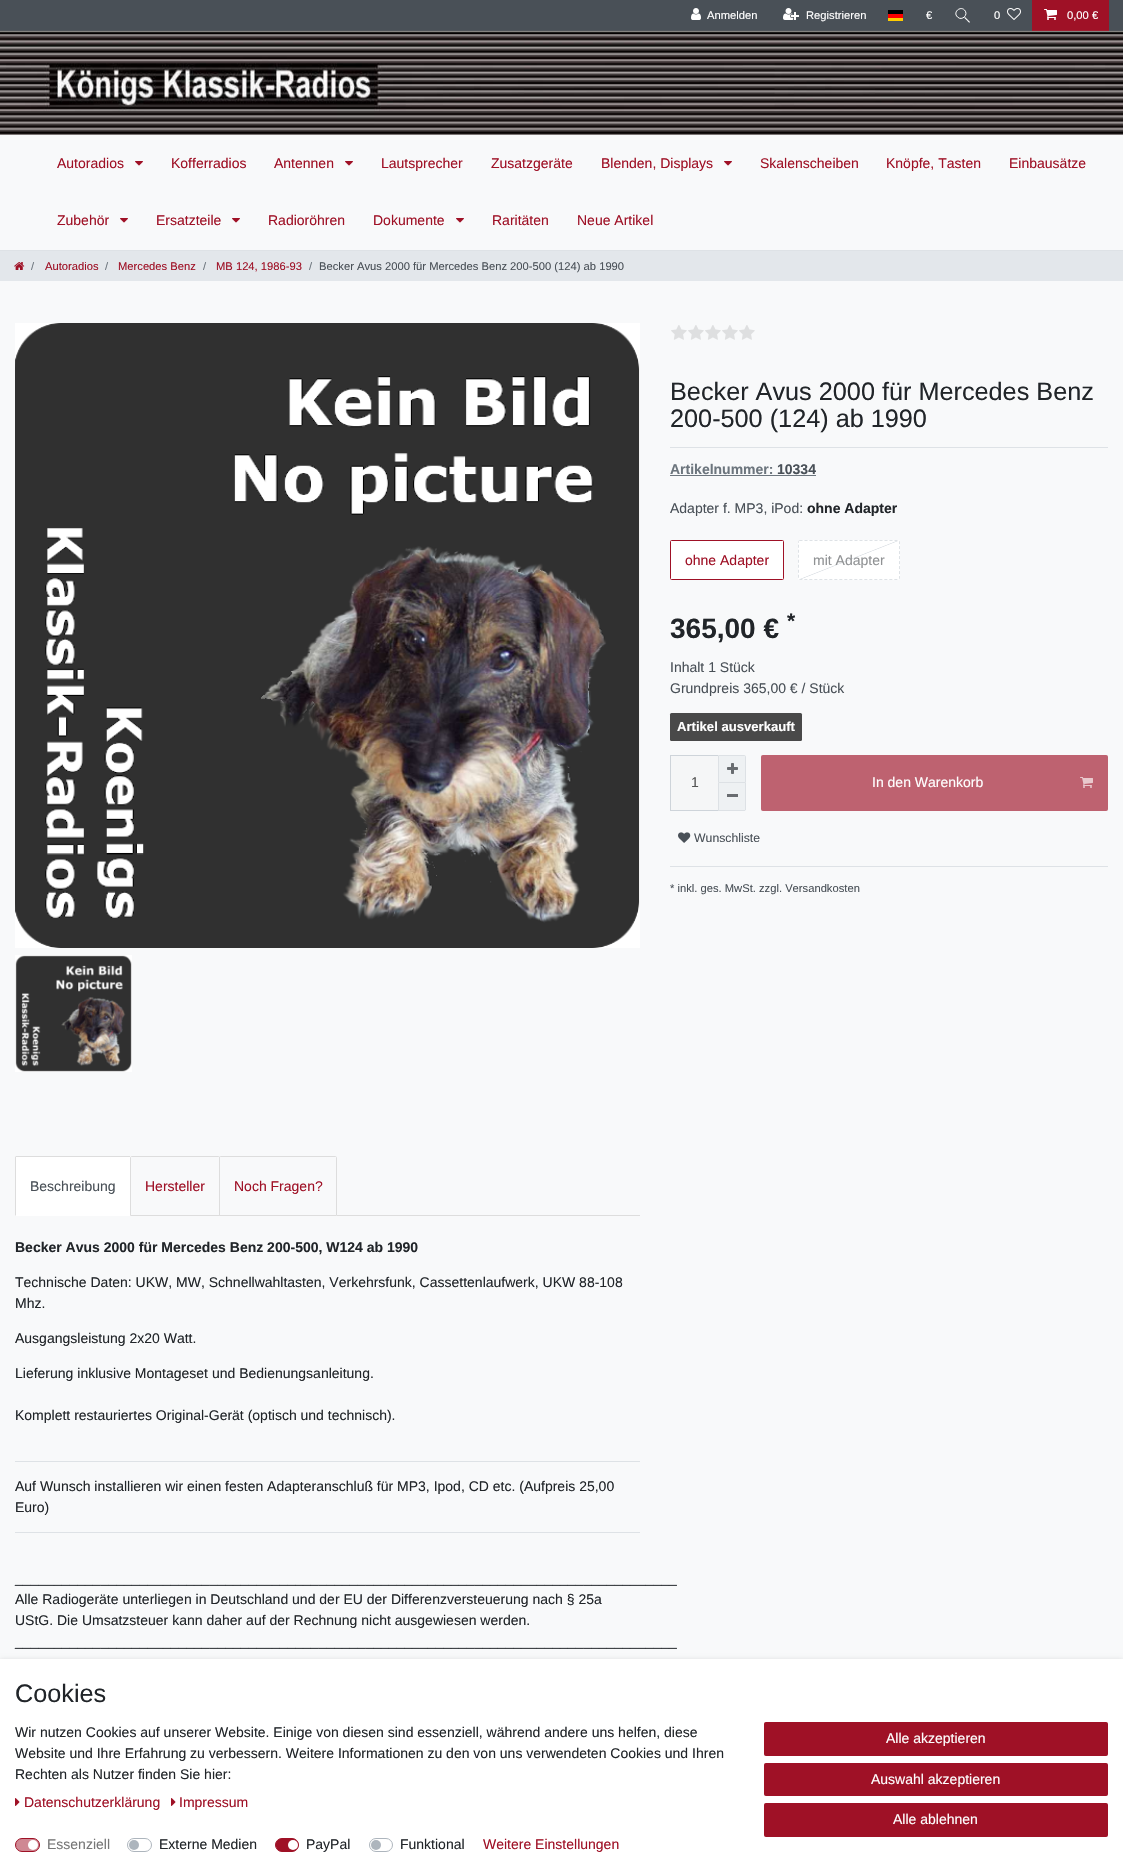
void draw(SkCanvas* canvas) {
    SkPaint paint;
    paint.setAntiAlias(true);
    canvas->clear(0xFFF8F9FA);
    paint.setColor(0xFF495057);
    canvas->drawRect(SkRect::MakeXYWH(0, 0, 1123, 31), paint);
    canvas->drawImageRect(SkImages::DeferredFromEncodedData(SkData::MakeFromFileName("img1.png")), SkRect::MakeXYWH(691, 8, 10, 12), SkSamplingOptions());
    SkFont font1(fontMgr->matchFamilyStyle("Liberation Sans", SkFontStyle::Normal()), 11.2f);
    font1.setSubpixel(true);
    paint.setColor(0xFFFFFFFF);
    canvas->drawString("Anmelden", 707, 19, font1, paint);
    canvas->drawImageRect(SkImages::DeferredFromEncodedData(SkData::MakeFromFileName("img2.png")), SkRect::MakeXYWH(783, 8, 16, 12), SkSamplingOptions());
    canvas->drawString("Registrieren", 806, 19, font1, paint);
    paint.setColor(0xFFFFCC00);
    canvas->drawRect(SkRect::MakeXYWH(888, 18, 15, 3), paint);
    paint.setColor(0xFF000000);
    canvas->drawRect(SkRect::MakeXYWH(888, 10, 15, 4), paint);
    paint.setColor(0xFFFF0000);
    canvas->drawRect(SkRect::MakeXYWH(888, 14, 15, 4), paint);
    paint.setColor(0xFFFFFFFF);
    canvas->drawString("€", 926, 19, font1, paint);
    canvas->drawPath(SkPathBuilder().moveTo(969, 22.5f).cubicTo(967.5f, 21, 959, 12.5f, 959, 12).lineTo(959.5f, 11.5f).lineTo(970, 22).cubicTo(970, 22.5f, 969.5f, 22.5f, 969, 22.5f).close().detach(), paint);
    paint.setColor(0xFF495057);
    canvas->drawPath(SkPathBuilder().moveTo(957, 17.5f).cubicTo(952, 12.5f, 959.5f, 4.5f, 965, 9.5f).cubicTo(970, 14.5f, 962, 22.5f, 957, 17.5f).close().detach(), paint);
    paint.setStyle(SkPaint::kStroke_Style);
    paint.setStrokeWidth(1);
    paint.setColor(0xFFFFFFFF);
    canvas->drawPath(SkPathBuilder().moveTo(957.5f, 17).cubicTo(952.5f, 12.5f, 960, 5.5f, 964.5f, 10).cubicTo(969, 14.5f, 962, 21.5f, 957.5f, 17).close().detach(), paint);
    paint.setStyle(SkPaint::kFill_Style);
    canvas->drawString("0", 994, 19, font1, paint);
    canvas->drawImageRect(SkImages::DeferredFromEncodedData(SkData::MakeFromFileName("img3.png")), SkRect::MakeXYWH(1007, 8, 14, 12), SkSamplingOptions());
    paint.setColor(0xFF9F1126);
    canvas->drawRect(SkRect::MakeXYWH(1032, 0, 77, 31), paint);
    canvas->drawImageRect(SkImages::DeferredFromEncodedData(SkData::MakeFromFileName("img4.png")), SkRect::MakeXYWH(1044, 9, 13, 11), SkSamplingOptions());
    paint.setColor(0xFFFFFFFF);
    canvas->drawString("0,00 €", 1067, 19, font1, paint);
    canvas->drawImageRect(SkImages::DeferredFromEncodedData(SkData::MakeFromFileName("img5.png")), SkRect::MakeXYWH(0, 31, 1123, 104), SkSamplingOptions());
    canvas->drawImageRect(SkImages::DeferredFromEncodedData(SkData::MakeFromFileName("img6.png")), SkRect::MakeXYWH(0, 30, 1123, 105), SkSamplingOptions());
    paint.setColor(0xFFDEE2E6);
    canvas->drawRect(SkRect::MakeXYWH(0, 250, 1123, 1), paint);
    SkFont font2(fontMgr->matchFamilyStyle("Liberation Sans", SkFontStyle::Normal()), 14);
    font2.setSubpixel(true);
    paint.setColor(0xFF9F1126);
    canvas->drawString("Autoradios", 57, 168, font2, paint);
    canvas->drawImageRect(SkImages::DeferredFromEncodedData(SkData::MakeFromFileName("img7.png")), SkRect::MakeXYWH(135, 161, 8, 5), SkSamplingOptions());
    canvas->drawString("Kofferradios", 171, 168, font2, paint);
    canvas->drawString("Antennen", 274, 168, font2, paint);
    canvas->drawImageRect(SkImages::DeferredFromEncodedData(SkData::MakeFromFileName("img7.png")), SkRect::MakeXYWH(345, 161, 8, 5), SkSamplingOptions());
    canvas->drawString("Lautsprecher", 381, 168, font2, paint);
    canvas->drawString("Zusatzgeräte", 491, 168, font2, paint);
    canvas->drawString("Blenden, Displays", 601, 168, font2, paint);
    canvas->drawImageRect(SkImages::DeferredFromEncodedData(SkData::MakeFromFileName("img7.png")), SkRect::MakeXYWH(724, 161, 8, 5), SkSamplingOptions());
    canvas->drawString("Skalenscheiben", 760, 168, font2, paint);
    canvas->drawString("Knöpfe, Tasten", 886, 168, font2, paint);
    canvas->drawString("Einbausätze", 1009, 168, font2, paint);
    canvas->drawString("Zubehör", 57, 225, font2, paint);
    canvas->drawImageRect(SkImages::DeferredFromEncodedData(SkData::MakeFromFileName("img7.png")), SkRect::MakeXYWH(120, 218, 8, 5), SkSamplingOptions());
    canvas->drawString("Ersatzteile", 156, 225, font2, paint);
    canvas->drawImageRect(SkImages::DeferredFromEncodedData(SkData::MakeFromFileName("img7.png")), SkRect::MakeXYWH(232, 218, 8, 5), SkSamplingOptions());
    canvas->drawString("Radioröhren", 268, 225, font2, paint);
    canvas->drawString("Dokumente", 373, 225, font2, paint);
    canvas->drawImageRect(SkImages::DeferredFromEncodedData(SkData::MakeFromFileName("img7.png")), SkRect::MakeXYWH(456, 218, 8, 5), SkSamplingOptions());
    canvas->drawString("Raritäten", 492, 225, font2, paint);
    canvas->drawString("Neue Artikel", 577, 225, font2, paint);
    paint.setColor(0xFFE3E7EB);
    canvas->drawRect(SkRect::MakeXYWH(0, 251, 1123, 30), paint);
    canvas->drawImageRect(SkImages::DeferredFromEncodedData(SkData::MakeFromFileName("img8.png")), SkRect::MakeXYWH(14, 262, 11, 8), SkSamplingOptions());
    paint.setColor(0xFF6C757D);
    canvas->drawString("/", 31, 270, font1, paint);
    paint.setColor(0xFF9F1126);
    canvas->drawString("Autoradios", 45, 270, font1, paint);
    paint.setColor(0xFF6C757D);
    canvas->drawString("/", 105, 270, font1, paint);
    paint.setColor(0xFF9F1126);
    canvas->drawString("Mercedes Benz", 118, 270, font1, paint);
    paint.setColor(0xFF6C757D);
    canvas->drawString("/", 203, 270, font1, paint);
    paint.setColor(0xFF9F1126);
    canvas->drawString("MB 124, 1986-93", 216, 270, font1, paint);
    paint.setColor(0xFF6C757D);
    canvas->drawString("/", 309, 270, font1, paint);
    paint.setColor(0xFF495057);
    canvas->drawString("Becker Avus 2000 für Mercedes Benz 200-500 (124) ab 1990", 319, 270, font1, paint);
    paint.setColor(0xFFFFFFFF);
    canvas->drawRect(SkRect::MakeXYWH(15, 323, 625, 625), paint);
    canvas->drawImageRect(SkImages::DeferredFromEncodedData(SkData::MakeFromFileName("img9.png")), SkRect::MakeXYWH(15, 323, 625, 625), SkSamplingOptions());
    canvas->drawRect(SkRect::MakeXYWH(15, 955, 117, 117), paint);
    canvas->drawImageRect(SkImages::DeferredFromEncodedData(SkData::MakeFromFileName("img10.png")), SkRect::MakeXYWH(15, 955, 117, 117), SkSamplingOptions());
    canvas->drawImageRect(SkImages::DeferredFromEncodedData(SkData::MakeFromFileName("img11.png")), SkRect::MakeXYWH(671, 325, 16, 15), SkSamplingOptions());
    canvas->drawImageRect(SkImages::DeferredFromEncodedData(SkData::MakeFromFileName("img11.png")), SkRect::MakeXYWH(688, 325, 16, 15), SkSamplingOptions());
    canvas->drawImageRect(SkImages::DeferredFromEncodedData(SkData::MakeFromFileName("img11.png")), SkRect::MakeXYWH(705, 325, 16, 15), SkSamplingOptions());
    canvas->drawImageRect(SkImages::DeferredFromEncodedData(SkData::MakeFromFileName("img11.png")), SkRect::MakeXYWH(722, 325, 16, 15), SkSamplingOptions());
    canvas->drawImageRect(SkImages::DeferredFromEncodedData(SkData::MakeFromFileName("img11.png")), SkRect::MakeXYWH(739, 325, 16, 15), SkSamplingOptions());
    SkFont font3(fontMgr->matchFamilyStyle("Liberation Sans", SkFontStyle::Normal()), 25.25f);
    font3.setSubpixel(true);
    paint.setColor(0xFF212529);
    canvas->drawString("Becker Avus 2000 für Mercedes Benz", 670, 400, font3, paint);
    canvas->drawString("200-500 (124) ab 1990", 670, 427, font3, paint);
    paint.setColor(0xFFDEE2E6);
    canvas->drawRect(SkRect::MakeXYWH(670, 447, 438, 1), paint);
    SkFont font4(fontMgr->matchFamilyStyle("Liberation Sans", SkFontStyle::Bold()), 14);
    font4.setSubpixel(true);
    paint.setColor(0xFF6C757D);
    canvas->drawString("Artikelnummer:", 670, 474, font4, paint);
    paint.setColor(0xFF495057);
    canvas->drawString("10334", 777, 474, font4, paint);
    paint.setColor(0xFF6C757D);
    canvas->drawRect(SkRect::MakeXYWH(670, 475, 146, 1), paint);
    paint.setColor(0xFF495057);
    canvas->drawString("Adapter f. MP3, iPod:", 670, 513, font2, paint);
    paint.setColor(0xFF212529);
    canvas->drawString("ohne Adapter", 807, 513, font4, paint);
    paint.setColor(0xFFFFFFFF);
    canvas->drawRoundRect(SkRect::MakeXYWH(670.5f, 540.5f, 113, 39), 1, 1, paint);
    paint.setStyle(SkPaint::kStroke_Style);
    paint.setColor(0xFF9F1126);
    canvas->drawRoundRect(SkRect::MakeXYWH(670.5f, 540.5f, 113, 39), 1, 1, paint);
    paint.setStyle(SkPaint::kFill_Style);
    canvas->drawString("ohne Adapter", 685, 565, font2, paint);
    paint.setColor(0xFFFFFFFF);
    canvas->drawRoundRect(SkRect::MakeXYWH(798, 540, 102, 40), 1.5f, 1.5f, paint);
    paint.setStyle(SkPaint::kStroke_Style);
    paint.setColor(0xFFDEE2E6);
    paint.setPathEffect(SkDashPathEffect::Make({{3, 2}}, 0));
    canvas->drawPath(SkPathBuilder().moveTo(799.5f, 540.5f).lineTo(898.5f, 540.5f).cubicTo(899, 540.5f, 899.5f, 541, 899.5f, 541.5f).lineTo(899.5f, 578.5f).cubicTo(899.5f, 579, 899, 579.5f, 898.5f, 579.5f).lineTo(799.5f, 579.5f).cubicTo(799, 579.5f, 798.5f, 579, 798.5f, 578.5f).lineTo(798.5f, 541.5f).cubicTo(798.5f, 541, 799, 540.5f, 799.5f, 540.5f).close().detach(), paint);
    paint.setPathEffect(nullptr);
    paint.setStyle(SkPaint::kFill_Style);
    {
        const SkColor colors[] = {0x00000000, 0x00DEE2E6, 0xFFDEE2E6, 0x00DEE2E6, 0x00000000};
        const float stops[] = {0, 0.49f, 0.5f, 0.51f, 1};
        const SkPoint ends[] = {{862, 593}, {836, 527}};
        paint.setShader(SkGradientShader::MakeLinear(ends, colors, stops, 5, SkTileMode::kClamp));
        paint.setAlpha(255);
    }
    canvas->drawRect(SkRect::MakeXYWH(800, 541, 98, 38), paint);
    paint.setShader(nullptr);
    paint.setColor(0xFF909294);
    canvas->drawString("mit Adapter", 813, 565, font2, paint);
    SkFont font5(fontMgr->matchFamilyStyle("Liberation Sans", SkFontStyle::Bold()), 28);
    font5.setSubpixel(true);
    paint.setColor(0xFF212529);
    canvas->drawString("365,00 €", 670, 638, font5, paint);
    SkFont font6(fontMgr->matchFamilyStyle("Liberation Sans", SkFontStyle::Bold()), 21);
    font6.setSubpixel(true);
    canvas->drawString("*", 787, 628, font6, paint);
    paint.setColor(0xFF495057);
    canvas->drawString("Inhalt 1 Stück", 670, 672, font2, paint);
    canvas->drawString("Grundpreis 365,00 € / Stück", 670, 693, font2, paint);
    paint.setColor(0xFF494949);
    canvas->drawRoundRect(SkRect::MakeXYWH(670, 713, 132, 28), 1.5f, 1.5f, paint);
    SkFont font7(fontMgr->matchFamilyStyle("Liberation Sans", SkFontStyle::Bold()), 13.1f);
    font7.setSubpixel(true);
    paint.setColor(0xFFFFFFFF);
    canvas->drawString("Artikel ausverkauft", 677, 731, font7, paint);
    paint.setColor(0xFFF5F6F7);
    canvas->drawRect(SkRect::MakeXYWH(671, 756, 47, 54), paint);
    paint.setColor(0xFFCED4DA);
    canvas->drawRect(SkRect::MakeXYWH(670, 755, 48, 1), paint);
    canvas->drawRect(SkRect::MakeXYWH(670, 810, 48, 1), paint);
    canvas->drawRect(SkRect::MakeXYWH(670, 755, 1, 56), paint);
    paint.setColor(0xFF545454);
    canvas->drawString("1", 691, 787, font2, paint);
    paint.setColor(0xFFEEF1F3);
    canvas->drawPath(SkPathBuilder().moveTo(718.5f, 755.5f).lineTo(744.5f, 755.5f).cubicTo(745, 755.5f, 745.5f, 756, 745.5f, 756.5f).lineTo(745.5f, 782.5f).lineTo(718.5f, 782.5f).close().detach(), paint);
    paint.setStyle(SkPaint::kStroke_Style);
    paint.setColor(0xFFDDE1E5);
    canvas->drawPath(SkPathBuilder().moveTo(718.5f, 755.5f).lineTo(744.5f, 755.5f).cubicTo(745, 755.5f, 745.5f, 756, 745.5f, 756.5f).lineTo(745.5f, 782.5f).lineTo(718.5f, 782.5f).close().detach(), paint);
    canvas->drawImageRect(SkImages::DeferredFromEncodedData(SkData::MakeFromFileName("img12.png")), SkRect::MakeXYWH(727, 763, 11, 11), SkSamplingOptions());
    paint.setStyle(SkPaint::kFill_Style);
    paint.setColor(0xFFEEF1F3);
    canvas->drawPath(SkPathBuilder().moveTo(718, 783).lineTo(746, 783).lineTo(746, 809.5f).cubicTo(746, 810.5f, 745.5f, 811, 744.5f, 811).lineTo(718, 811).close().detach(), paint);
    paint.setColor(0xFFDDE1E5);
    canvas->drawRect(SkRect::MakeXYWH(745, 783, 1, 27), paint);
    canvas->drawRect(SkRect::MakeXYWH(718, 810, 27, 1), paint);
    canvas->drawRect(SkRect::MakeXYWH(718, 783, 1, 28), paint);
    paint.setColor(0xFF696C70);
    canvas->drawRect(SkRect::MakeXYWH(727, 794, 11, 3), paint);
    paint.setColor(0xFFBE6270);
    canvas->drawRoundRect(SkRect::MakeXYWH(761.5f, 755.5f, 346, 55), 1, 1, paint);
    paint.setStyle(SkPaint::kStroke_Style);
    canvas->drawRoundRect(SkRect::MakeXYWH(761.5f, 755.5f, 346, 55), 1, 1, paint);
    paint.setStyle(SkPaint::kFill_Style);
    paint.setColor(0xFFFFFFFF);
    canvas->drawString("In den Warenkorb", 872, 787, font2, paint);
    canvas->drawImageRect(SkImages::DeferredFromEncodedData(SkData::MakeFromFileName("img13.png")), SkRect::MakeXYWH(1080, 777, 13, 11), SkSamplingOptions());
    canvas->drawImageRect(SkImages::DeferredFromEncodedData(SkData::MakeFromFileName("img14.png")), SkRect::MakeXYWH(678, 832, 13, 11), SkSamplingOptions());
    SkFont font8(fontMgr->matchFamilyStyle("Liberation Sans", SkFontStyle::Normal()), 12.25f);
    font8.setSubpixel(true);
    paint.setColor(0xFF495057);
    canvas->drawString("Wunschliste", 694, 842, font8, paint);
    paint.setColor(0xFFDEE2E6);
    canvas->drawRect(SkRect::MakeXYWH(670, 866, 438, 1), paint);
    paint.setColor(0xFF495057);
    canvas->drawString("* inkl. ges. MwSt. zzgl. Versandkosten", 670, 892, font1, paint);
    paint.setColor(0xFFDDDDDD);
    canvas->drawRect(SkRect::MakeXYWH(337, 1215, 303, 1), paint);
    paint.setColor(0xFFFFFFFF);
    canvas->drawPath(SkPathBuilder().moveTo(16.5f, 1156).lineTo(129.5f, 1156).cubicTo(130.5f, 1156, 131, 1156.5f, 131, 1157.5f).lineTo(131, 1216).lineTo(15, 1216).lineTo(15, 1157.5f).cubicTo(15, 1156.5f, 15.5f, 1156, 16.5f, 1156).close().detach(), paint);
    paint.setColor(0xFFDDDDDD);
    canvas->drawRect(SkRect::MakeXYWH(16, 1156, 114, 1), paint);
    canvas->drawPath(SkPathBuilder().moveTo(16, 1157).lineTo(16, 1156).lineTo(15, 1157).lineTo(15, 1216).lineTo(16, 1215).close().detach(), paint);
    paint.setColor(0xFF495057);
    canvas->drawString("Beschreibung", 30, 1191, font2, paint);
    paint.setStyle(SkPaint::kStroke_Style);
    paint.setColor(0xFFDDDDDD);
    canvas->drawPath(SkPathBuilder().moveTo(131.5f, 1156.5f).lineTo(218.5f, 1156.5f).cubicTo(219, 1156.5f, 219.5f, 1157, 219.5f, 1157.5f).lineTo(219.5f, 1215.5f).lineTo(130.5f, 1215.5f).lineTo(130.5f, 1157.5f).cubicTo(130.5f, 1157, 131, 1156.5f, 131.5f, 1156.5f).close().detach(), paint);
    paint.setStyle(SkPaint::kFill_Style);
    paint.setColor(0xFF9F1126);
    canvas->drawString("Hersteller", 145, 1191, font2, paint);
    paint.setStyle(SkPaint::kStroke_Style);
    paint.setColor(0xFFDDDDDD);
    canvas->drawPath(SkPathBuilder().moveTo(220.5f, 1156.5f).lineTo(335.5f, 1156.5f).cubicTo(336, 1156.5f, 336.5f, 1157, 336.5f, 1157.5f).lineTo(336.5f, 1215.5f).lineTo(219.5f, 1215.5f).lineTo(219.5f, 1157.5f).cubicTo(219.5f, 1157, 220, 1156.5f, 220.5f, 1156.5f).close().detach(), paint);
    paint.setStyle(SkPaint::kFill_Style);
    paint.setColor(0xFF9F1126);
    canvas->drawString("Noch Fragen?", 234, 1191, font2, paint);
    paint.setColor(0xFF212529);
    canvas->drawString("Becker Avus 2000 für Mercedes Benz 200-500, W124 ab 1990", 15, 1252, font4, paint);
    canvas->drawString("Technische Daten: UKW, MW, Schnellwahltasten, Verkehrsfunk, Cassettenlaufwerk, UKW 88-108", 15, 1287, font2, paint);
    canvas->drawString("Mhz.", 15, 1308, font2, paint);
    canvas->drawString("Ausgangsleistung 2x20 Watt.", 15, 1343, font2, paint);
    canvas->drawString("Lieferung inklusive Montageset und Bedienungsanleitung.", 15, 1378, font2, paint);
    canvas->drawString("Komplett restauriertes Original-Gerät (optisch und technisch).", 15, 1420, font2, paint);
    paint.setColor(0xFFDEE2E6);
    canvas->drawRect(SkRect::MakeXYWH(15, 1461, 625, 1), paint);
    paint.setColor(0xFF212529);
    canvas->drawString("Auf Wunsch installieren wir einen festen Adapteranschluß für MP3, Ipod, CD etc. (Aufpreis 25,00", 15, 1491, font2, paint);
    canvas->drawString("Euro)", 15, 1512, font2, paint);
    paint.setColor(0xFFDEE2E6);
    canvas->drawRect(SkRect::MakeXYWH(15, 1532, 625, 1), paint);
    paint.setColor(0xFF212529);
    canvas->drawString("_____________________________________________________________________________________", 15, 1583, font2, paint);
    canvas->drawString("Alle Radiogeräte unterliegen in Deutschland und der EU der Differenzversteuerung nach § 25a", 15, 1604, font2, paint);
    canvas->drawString("UStG. Die Umsatzsteuer kann daher auf der Rechnung nicht ausgewiesen werden.", 15, 1625, font2, paint);
    canvas->drawString("_____________________________________________________________________________________", 15, 1646, font2, paint);
    paint.setColor(0x26000000);
    paint.setMaskFilter(SkMaskFilter::MakeBlur(kNormal_SkBlurStyle, 2.5f));
    canvas->drawRect(SkRect::MakeXYWH(0, 1660, 1123, 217), paint);
    paint.setMaskFilter(nullptr);
    paint.setColor(0xFFFFFFFF);
    canvas->drawRect(SkRect::MakeXYWH(0, 1659, 1123, 217), paint);
    paint.setColor(0xFF212529);
    canvas->drawString("Cookies", 15, 1702, font3, paint);
    canvas->drawString("Wir nutzen Cookies auf unserer Website. Einige von diesen sind essenziell, während andere uns helfen, diese", 15, 1737, font2, paint);
    canvas->drawString("Website und Ihre Erfahrung zu verbessern. Weitere Informationen zu den von uns verwendeten Cookies und Ihren", 15, 1758, font2, paint);
    canvas->drawString("Rechten als Nutzer finden Sie hier:", 15, 1779, font2, paint);
    canvas->drawImageRect(SkImages::DeferredFromEncodedData(SkData::MakeFromFileName("img15.png")), SkRect::MakeXYWH(15, 1798, 5, 8), SkSamplingOptions());
    paint.setColor(0xFF9F1126);
    canvas->drawString("Datenschutzerklärung", 24, 1807, font2, paint);
    canvas->drawImageRect(SkImages::DeferredFromEncodedData(SkData::MakeFromFileName("img15.png")), SkRect::MakeXYWH(171, 1798, 5, 8), SkSamplingOptions());
    canvas->drawString("Impressum", 179, 1807, font2, paint);
    paint.setColor(0xFFCF8893);
    canvas->drawRoundRect(SkRect::MakeXYWH(15.5f, 1838.5f, 24, 13), 6.5f, 6.5f, paint);
    paint.setStyle(SkPaint::kStroke_Style);
    paint.setColor(0xFF9F1126);
    canvas->drawRoundRect(SkRect::MakeXYWH(15.5f, 1838.5f, 24, 13), 6.5f, 6.5f, paint);
    paint.setStyle(SkPaint::kFill_Style);
    paint.setColor(0xFF767676);
    canvas->drawString("Essenziell", 47, 1849, font2, paint);
    paint.setColor(0xFFFFFFFF);
    canvas->drawCircle(33, 1845, 5, paint);
    paint.setStyle(SkPaint::kStroke_Style);
    paint.setColor(0xFFADB5BD);
    canvas->drawRoundRect(SkRect::MakeXYWH(127.5f, 1838.5f, 24, 13), 6.5f, 6.5f, paint);
    paint.setStyle(SkPaint::kFill_Style);
    paint.setColor(0xFF212529);
    canvas->drawString("Externe Medien", 159, 1849, font2, paint);
    paint.setColor(0xFFADB5BD);
    canvas->drawCircle(134, 1845, 5, paint);
    paint.setColor(0xFF9F1126);
    canvas->drawRoundRect(SkRect::MakeXYWH(275.5f, 1838.5f, 23, 13), 6.5f, 6.5f, paint);
    paint.setStyle(SkPaint::kStroke_Style);
    canvas->drawRoundRect(SkRect::MakeXYWH(275.5f, 1838.5f, 23, 13), 6.5f, 6.5f, paint);
    paint.setStyle(SkPaint::kFill_Style);
    paint.setColor(0xFF212529);
    canvas->drawString("PayPal", 306, 1849, font2, paint);
    paint.setColor(0xFFFFFFFF);
    canvas->drawCircle(293, 1845, 5, paint);
    paint.setStyle(SkPaint::kStroke_Style);
    paint.setColor(0xFFADB5BD);
    canvas->drawRoundRect(SkRect::MakeXYWH(369.5f, 1838.5f, 23, 13), 6.5f, 6.5f, paint);
    paint.setStyle(SkPaint::kFill_Style);
    paint.setColor(0xFF212529);
    canvas->drawString("Funktional", 400, 1849, font2, paint);
    paint.setColor(0xFFADB5BD);
    canvas->drawCircle(376, 1845, 5, paint);
    paint.setColor(0xFF9F1126);
    canvas->drawString("Weitere Einstellungen", 483, 1849, font2, paint);
    canvas->drawRoundRect(SkRect::MakeXYWH(764.5f, 1722.5f, 343, 33), 1, 1, paint);
    paint.setStyle(SkPaint::kStroke_Style);
    canvas->drawRoundRect(SkRect::MakeXYWH(764.5f, 1722.5f, 343, 33), 1, 1, paint);
    paint.setStyle(SkPaint::kFill_Style);
    paint.setColor(0xFFFFFFFF);
    canvas->drawString("Alle akzeptieren", 886, 1743, font2, paint);
    paint.setColor(0xFF9F1126);
    canvas->drawRoundRect(SkRect::MakeXYWH(764.5f, 1763.5f, 343, 32), 1, 1, paint);
    paint.setStyle(SkPaint::kStroke_Style);
    canvas->drawRoundRect(SkRect::MakeXYWH(764.5f, 1763.5f, 343, 32), 1, 1, paint);
    paint.setStyle(SkPaint::kFill_Style);
    paint.setColor(0xFFFFFFFF);
    canvas->drawString("Auswahl akzeptieren", 871, 1784, font2, paint);
    paint.setColor(0xFF9F1126);
    canvas->drawRoundRect(SkRect::MakeXYWH(764.5f, 1803.5f, 343, 33), 1, 1, paint);
    paint.setStyle(SkPaint::kStroke_Style);
    canvas->drawRoundRect(SkRect::MakeXYWH(764.5f, 1803.5f, 343, 33), 1, 1, paint);
    paint.setStyle(SkPaint::kFill_Style);
    paint.setColor(0xFFFFFFFF);
    canvas->drawString("Alle ablehnen", 893, 1824, font2, paint);
}
